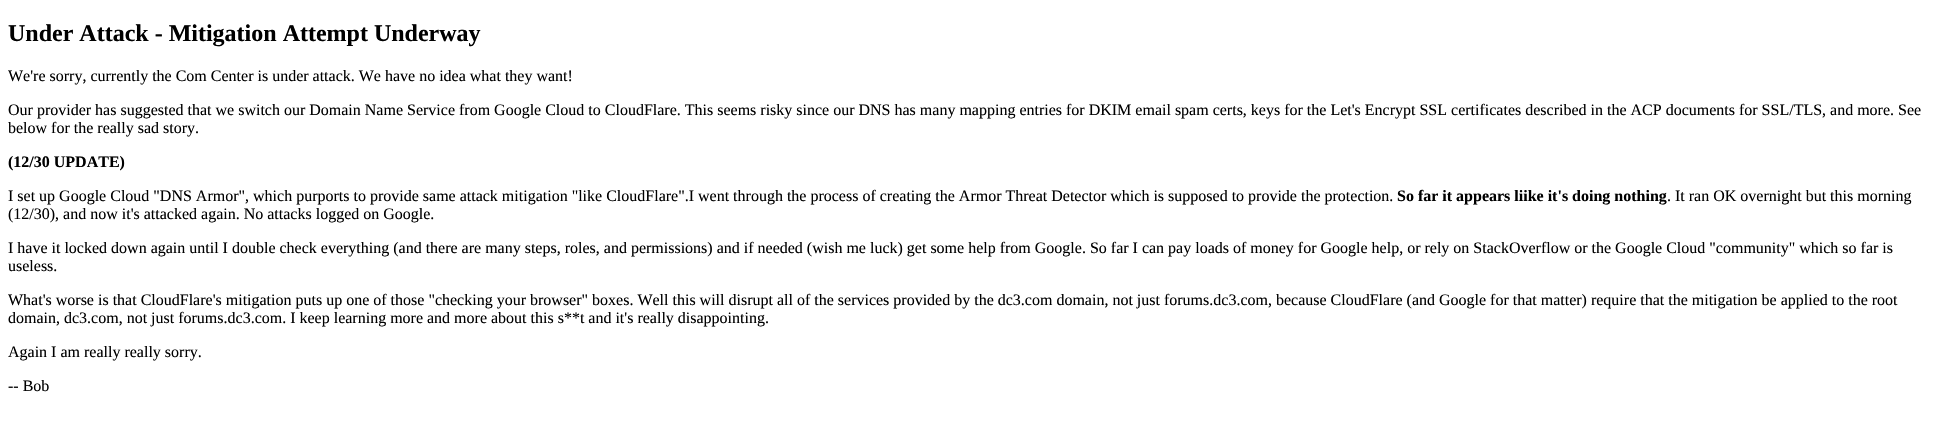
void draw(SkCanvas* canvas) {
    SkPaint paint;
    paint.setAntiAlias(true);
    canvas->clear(0xFFFFFFFF);
    SkFont font1(fontMgr->matchFamilyStyle("Liberation Serif", SkFontStyle::Bold()), 24);
    font1.setSubpixel(true);
    paint.setColor(0xFF000000);
    canvas->drawString("Under Attack - Mitigation Attempt Underway", 8, 41, font1, paint);
    SkFont font2(fontMgr->matchFamilyStyle("Liberation Serif", SkFontStyle::Normal()), 16);
    font2.setSubpixel(true);
    canvas->drawString("We're sorry, currently the Com Center is under attack. We have no idea what they want!", 8, 81, font2, paint);
    canvas->drawString("Our provider has suggested that we switch our Domain Name Service from Google Cloud to CloudFlare. This seems risky since our DNS has many mapping entries for DKIM email spam certs, keys for the Let's Encrypt SSL certificates described in the ACP documents for SSL/TLS, and more. See", 8, 115, font2, paint);
    canvas->drawString("below for the really sad story.", 8, 133, font2, paint);
    SkFont font3(fontMgr->matchFamilyStyle("Liberation Serif", SkFontStyle::Bold()), 16);
    font3.setSubpixel(true);
    canvas->drawString("(12/30 UPDATE)", 8, 167, font3, paint);
    canvas->drawString("I set up Google Cloud \"DNS Armor\", which purports to provide same attack mitigation \"like CloudFlare\".I went through the process of creating the Armor Threat Detector which is supposed to provide the protection.", 8, 201, font2, paint);
    canvas->drawString("So far it appears liike it's doing nothing", 1397, 201, font3, paint);
    canvas->drawString(". It ran OK overnight but this morning", 1667, 201, font2, paint);
    canvas->drawString("(12/30), and now it's attacked again. No attacks logged on Google.", 8, 219, font2, paint);
    canvas->drawString("I have it locked down again until I double check everything (and there are many steps, roles, and permissions) and if needed (wish me luck) get some help from Google. So far I can pay loads of money for Google help, or rely on StackOverflow or the Google Cloud \"community\" which so far is", 8, 253, font2, paint);
    canvas->drawString("useless.", 8, 271, font2, paint);
    canvas->drawString("What's worse is that CloudFlare's mitigation puts up one of those \"checking your browser\" boxes. Well this will disrupt all of the services provided by the dc3.com domain, not just forums.dc3.com, because CloudFlare (and Google for that matter) require that the mitigation be applied to the root", 8, 305, font2, paint);
    canvas->drawString("domain, dc3.com, not just forums.dc3.com. I keep learning more and more about this s**t and it's really disappointing.", 8, 323, font2, paint);
    canvas->drawString("Again I am really really sorry.", 8, 357, font2, paint);
    canvas->drawString("-- Bob", 8, 391, font2, paint);
}
